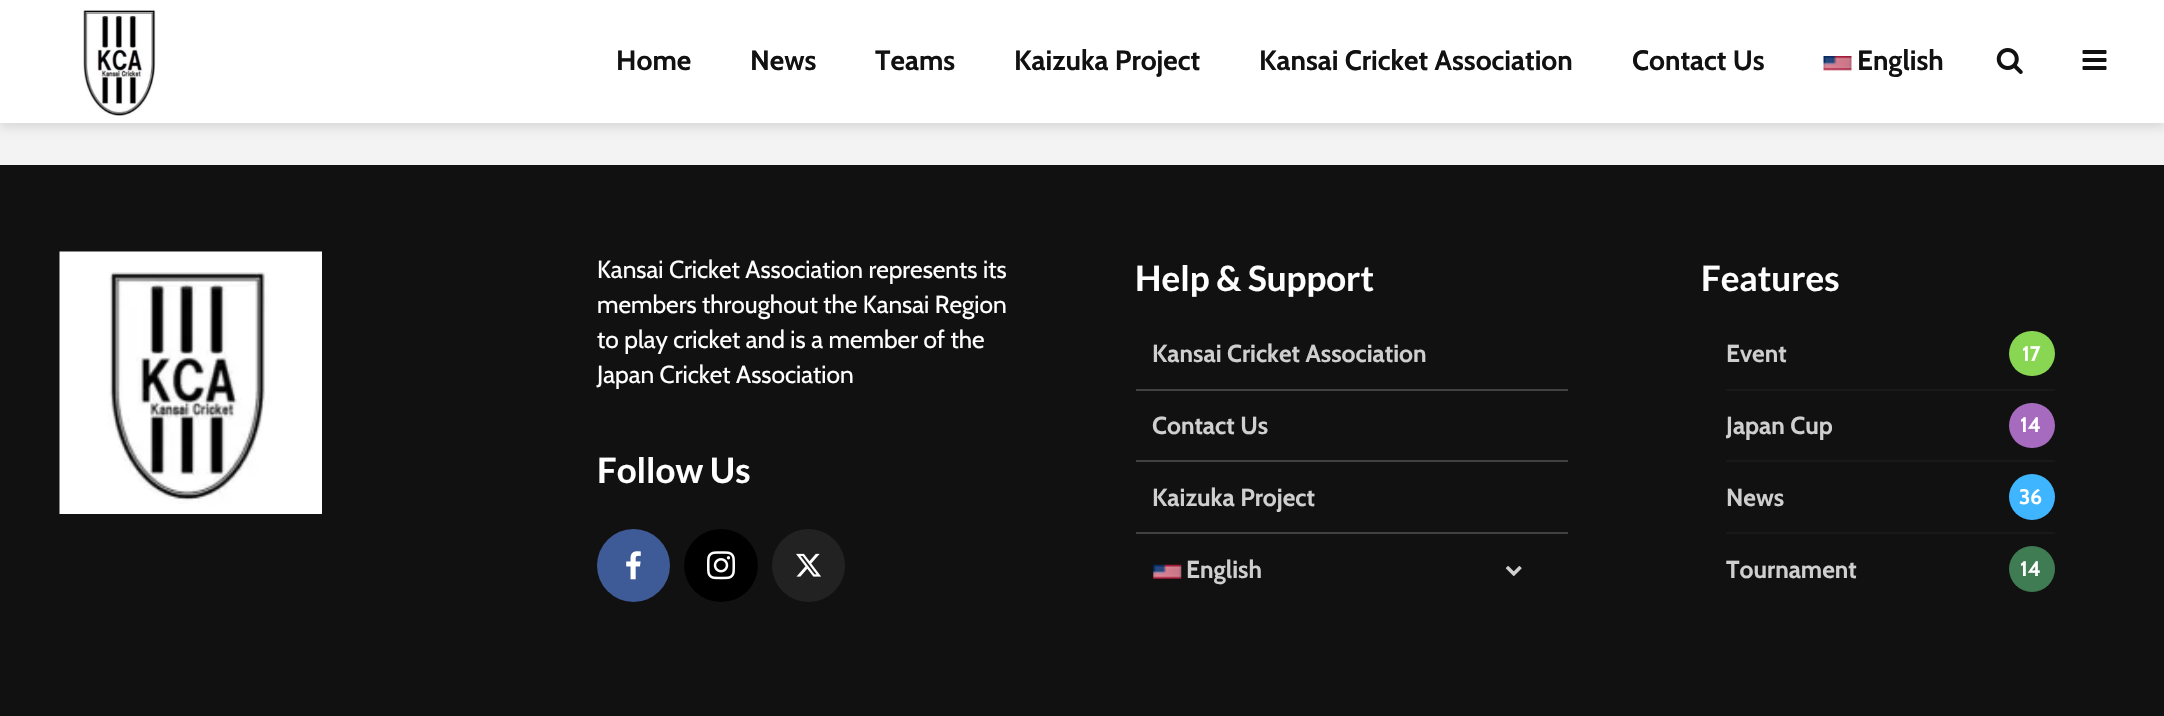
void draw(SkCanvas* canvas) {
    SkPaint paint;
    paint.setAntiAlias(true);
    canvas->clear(0xFFF3F3F3);
    paint.setColor(0x1A000101);
    paint.setMaskFilter(SkMaskFilter::MakeBlur(kNormal_SkBlurStyle, 4.5f));
    canvas->drawRect(SkRect::MakeXYWH(0, 5, 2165, 123), paint);
    paint.setMaskFilter(nullptr);
    paint.setColor(0xFFFFFFFF);
    canvas->drawRect(SkRect::MakeXYWH(0, 0, 2164, 123), paint);
    canvas->drawImageRect(SkImages::DeferredFromEncodedData(SkData::MakeFromFileName("img1.png")), SkRect::MakeXYWH(83, 9, 73, 107), SkSamplingOptions());
    SkFont font1(fontMgr->matchFamilyStyle("Cabin", SkFontStyle::Bold()), 28);
    font1.setSubpixel(true);
    paint.setColor(0xFF111111);
    canvas->drawString("Home", 616, 70, font1, paint);
    canvas->drawString("News", 750, 70, font1, paint);
    canvas->drawString("Teams", 875, 70, font1, paint);
    canvas->drawString("Kaizuka Project", 1014, 70, font1, paint);
    canvas->drawString("Kansai Cricket Association", 1259, 70, font1, paint);
    canvas->drawString("Contact Us", 1632, 70, font1, paint);
    canvas->drawImageRect(SkImages::DeferredFromEncodedData(SkData::MakeFromFileName("img2.png")), SkRect::MakeXYWH(1823, 56, 29, 15), SkSamplingOptions());
    canvas->drawString("English", 1857, 70, font1, paint);
    canvas->drawImageRect(SkImages::DeferredFromEncodedData(SkData::MakeFromFileName("img3.png")), SkRect::MakeXYWH(1996, 48, 27, 26), SkSamplingOptions());
    canvas->drawImageRect(SkImages::DeferredFromEncodedData(SkData::MakeFromFileName("img4.png")), SkRect::MakeXYWH(2082, 50, 25, 20), SkSamplingOptions());
    canvas->drawRect(SkRect::MakeXYWH(0, 165, 2164, 551), paint);
    canvas->drawImageRect(SkImages::DeferredFromEncodedData(SkData::MakeFromFileName("img5.png")), SkRect::MakeXYWH(59, 251, 263, 263), SkSamplingOptions());
    SkFont font2(fontMgr->matchFamilyStyle("Cabin", SkFontStyle::Normal()), 24.5f);
    font2.setSubpixel(true);
    paint.setColor(0xFFFFFFFF);
    canvas->drawString("Kansai Cricket Association represents its", 597, 278, font2, paint);
    canvas->drawString("members throughout the Kansai Region", 597, 313, font2, paint);
    canvas->drawString("to play cricket and is a member of the", 597, 348, font2, paint);
    canvas->drawString("Japan Cricket Association", 597, 383, font2, paint);
    SkFont font3(fontMgr->matchFamilyStyle("Lato", SkFontStyle::Bold()), 35);
    font3.setSubpixel(true);
    canvas->drawString("Follow Us", 597, 483, font3, paint);
    paint.setColor(0xFF3E5B98);
    canvas->drawCircle(633.5f, 565.5f, 36.5f, paint);
    canvas->drawImageRect(SkImages::DeferredFromEncodedData(SkData::MakeFromFileName("img6.png")), SkRect::MakeXYWH(626, 551, 15, 29), SkSamplingOptions());
    paint.setColor(0xFF000000);
    canvas->drawRoundRect(SkRect::MakeXYWH(684, 529, 74, 73), 36.5f, 36.5f, paint);
    canvas->drawImageRect(SkImages::DeferredFromEncodedData(SkData::MakeFromFileName("img7.png")), SkRect::MakeXYWH(707, 551, 28, 29), SkSamplingOptions());
    paint.setColor(0xFF222222);
    canvas->drawCircle(808.5f, 565.5f, 36.5f, paint);
    canvas->drawImageRect(SkImages::DeferredFromEncodedData(SkData::MakeFromFileName("img8.png")), SkRect::MakeXYWH(796, 553, 25, 24), SkSamplingOptions());
    paint.setColor(0xFFFFFFFF);
    canvas->drawString("Help & Support", 1135, 291, font3, paint);
    paint.setColor(0xFF414141);
    canvas->drawRect(SkRect::MakeXYWH(1136, 389, 432, 2), paint);
    SkFont font4(fontMgr->matchFamilyStyle("Cabin", SkFontStyle::Bold()), 24.5f);
    font4.setSubpixel(true);
    paint.setColor(0xFFCFCFCF);
    canvas->drawString("Kansai Cricket Association", 1152, 362, font4, paint);
    paint.setColor(0xFF414141);
    canvas->drawRect(SkRect::MakeXYWH(1136, 460, 432, 2), paint);
    paint.setColor(0xFFCFCFCF);
    canvas->drawString("Contact Us", 1152, 434, font4, paint);
    paint.setColor(0xFF414141);
    canvas->drawRect(SkRect::MakeXYWH(1136, 532, 432, 2), paint);
    paint.setColor(0xFFCFCFCF);
    canvas->drawString("Kaizuka Project", 1152, 506, font4, paint);
    canvas->drawImageRect(SkImages::DeferredFromEncodedData(SkData::MakeFromFileName("img9.png")), SkRect::MakeXYWH(1153, 564, 29, 15), SkSamplingOptions());
    canvas->drawString("English", 1186, 578, font4, paint);
    canvas->drawImageRect(SkImages::DeferredFromEncodedData(SkData::MakeFromFileName("img10.png")), SkRect::MakeXYWH(1505, 566, 17, 10), SkSamplingOptions());
    paint.setColor(0xFFFFFFFF);
    canvas->drawString("Features", 1701, 291, font3, paint);
    paint.setColor(0xFF191919);
    canvas->drawRect(SkRect::MakeXYWH(1726, 389, 329, 2), paint);
    paint.setColor(0xFFCFCFCF);
    canvas->drawString("Event", 1726, 362, font4, paint);
    paint.setColor(0xFF88D651);
    canvas->drawRoundRect(SkRect::MakeXYWH(2009, 331, 46, 45), 22.5f, 22.5f, paint);
    SkFont font5(fontMgr->matchFamilyStyle("Cabin", SkFontStyle::Bold()), 21);
    font5.setSubpixel(true);
    paint.setColor(0xFFFFFFFF);
    canvas->drawString("17", 2022, 361, font5, paint);
    paint.setColor(0xFF191919);
    canvas->drawRect(SkRect::MakeXYWH(1726, 460, 329, 2), paint);
    paint.setColor(0xFFCFCFCF);
    canvas->drawString("Japan Cup", 1726, 434, font4, paint);
    paint.setColor(0xFFA66BBE);
    canvas->drawRoundRect(SkRect::MakeXYWH(2009, 403, 46, 45), 22.5f, 22.5f, paint);
    paint.setColor(0xFFFFFFFF);
    canvas->drawString("14", 2020, 432, font5, paint);
    paint.setColor(0xFF191919);
    canvas->drawRect(SkRect::MakeXYWH(1726, 532, 329, 2), paint);
    paint.setColor(0xFFCFCFCF);
    canvas->drawString("News", 1726, 506, font4, paint);
    paint.setColor(0xFF3FB5FF);
    canvas->drawCircle(2032, 497, 23, paint);
    paint.setColor(0xFFFFFFFF);
    canvas->drawString("36", 2019, 504, font5, paint);
    paint.setColor(0xFFCFCFCF);
    canvas->drawString("Tournament", 1726, 578, font4, paint);
    paint.setColor(0xFF3F7C54);
    canvas->drawCircle(2032, 569, 23, paint);
    paint.setColor(0xFFFFFFFF);
    canvas->drawString("14", 2020, 576, font5, paint);
}
